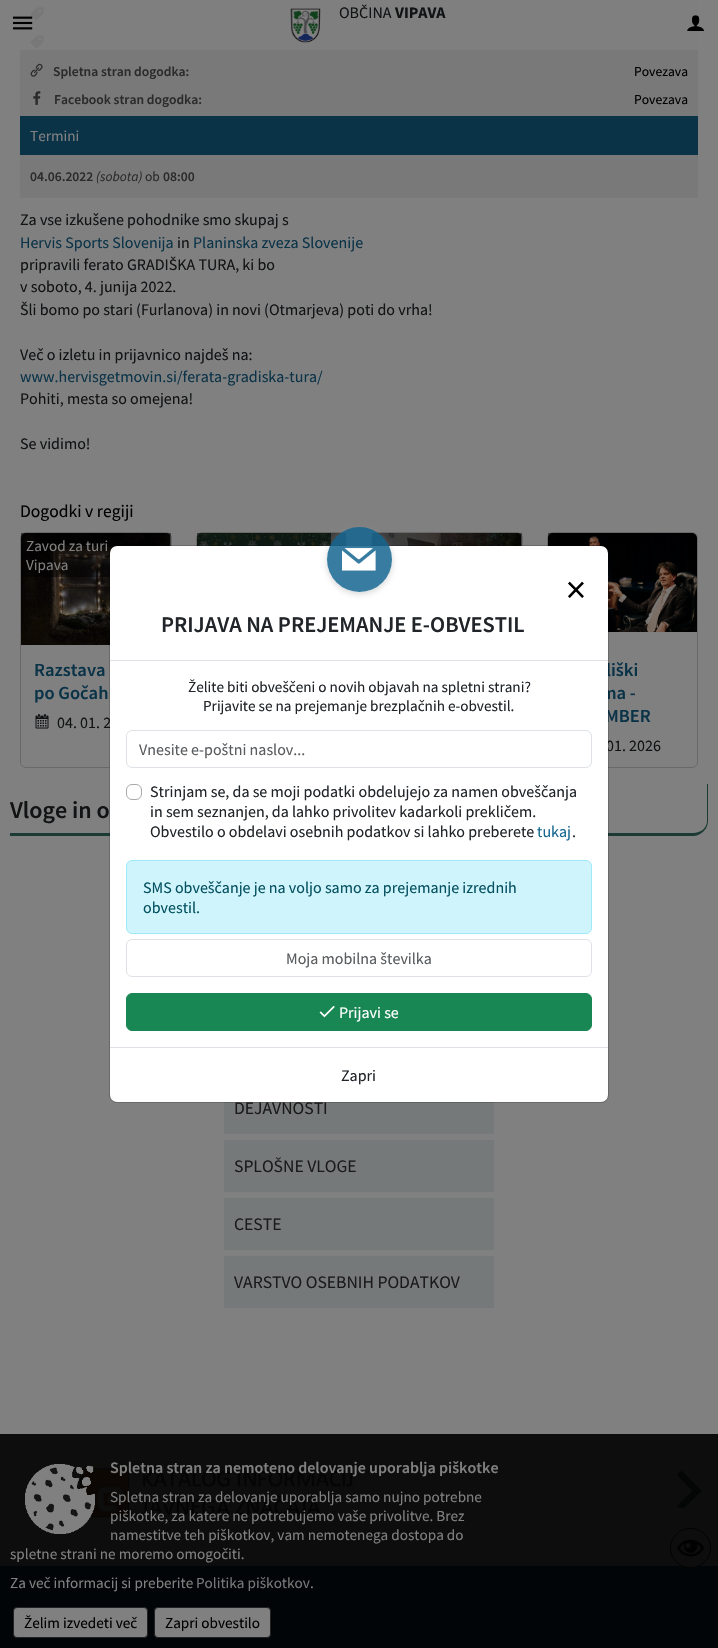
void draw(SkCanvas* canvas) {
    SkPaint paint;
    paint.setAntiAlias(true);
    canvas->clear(0xFF808080);
    paint.setColor(0xFF0D0D0D);
    canvas->drawRect(SkRect::MakeXYWH(0, 1434, 718, 132), paint);
    paint.setColor(0xFF797979);
    canvas->drawRect(SkRect::MakeXYWH(20, 0, 678, 198), paint);
    canvas->drawImageRect(SkImages::DeferredFromEncodedData(SkData::MakeFromFileName("img4.png")), SkRect::MakeXYWH(30, 7, 14, 14), SkSamplingOptions());
    canvas->drawImageRect(SkImages::DeferredFromEncodedData(SkData::MakeFromFileName("img4.png")), SkRect::MakeXYWH(30, 35, 14, 14), SkSamplingOptions());
    paint.setColor(0xE6808080);
    canvas->drawRect(SkRect::MakeXYWH(20, 0, 678, 50), paint);
    canvas->drawImageRect(SkImages::DeferredFromEncodedData(SkData::MakeFromFileName("img1.png")), SkRect::MakeXYWH(13, 16, 20, 14), SkSamplingOptions());
    canvas->drawImageRect(SkImages::DeferredFromEncodedData(SkData::MakeFromFileName("img2.png")), SkRect::MakeXYWH(687, 15, 17, 16), SkSamplingOptions());
    canvas->drawImageRect(SkImages::DeferredFromEncodedData(SkData::MakeFromFileName("img3.png")), SkRect::MakeXYWH(290, 8, 31, 35), SkSamplingOptions());
    SkFont font1(fontMgr->matchFamilyStyle("Source Sans Pro", SkFontStyle::Normal()), 16);
    font1.setSubpixel(true);
    paint.setColor(0xFF111315);
    canvas->drawString("OBČINA", 339, 18, font1, paint);
    SkFont font2(fontMgr->matchFamilyStyle("Source Sans Pro", SkFontStyle::Bold()), 16);
    font2.setSubpixel(true);
    canvas->drawString("VIPAVA", 395, 18, font2, paint);
    canvas->drawImageRect(SkImages::DeferredFromEncodedData(SkData::MakeFromFileName("img5.png")), SkRect::MakeXYWH(30, 63, 13, 14), SkSamplingOptions());
    SkFont font3(fontMgr->matchFamilyStyle("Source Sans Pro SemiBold", SkFontStyle(600, SkFontStyle::kNormal_Width, SkFontStyle::kUpright_Slant)), 13.6f);
    font3.setSubpixel(true);
    paint.setColor(0xFF2B2B2B);
    canvas->drawString("Spletna stran dogodka:", 53, 76, font3, paint);
    SkFont font4(fontMgr->matchFamilyStyle("Source Sans Pro", SkFontStyle::Normal()), 13.6f);
    font4.setSubpixel(true);
    paint.setColor(0xFF000000);
    canvas->drawString("Povezava", 634, 76, font4, paint);
    canvas->drawImageRect(SkImages::DeferredFromEncodedData(SkData::MakeFromFileName("img6.png")), SkRect::MakeXYWH(33, 91, 8, 14), SkSamplingOptions());
    paint.setColor(0xFF2B2B2B);
    canvas->drawString("Facebook stran dogodka:", 54, 104, font3, paint);
    paint.setColor(0xFF000000);
    canvas->drawString("Povezava", 634, 104, font4, paint);
    paint.setColor(0xFF0B3348);
    canvas->drawRect(SkRect::MakeXYWH(20, 116, 678, 39), paint);
    SkFont font5(fontMgr->matchFamilyStyle("Source Sans Pro", SkFontStyle::Normal()), 15.2f);
    font5.setSubpixel(true);
    paint.setColor(0xFF808080);
    canvas->drawString("Termini", 30, 141, font5, paint);
    paint.setColor(0xFF2B2B2B);
    canvas->drawString("04.06.2022", 30, 181, font3, paint);
    SkFont font6(fontMgr->matchFamilyStyle("Source Sans Pro", SkFontStyle::Italic()), 13.6f);
    font6.setSubpixel(true);
    canvas->drawString("(sobota)", 96, 181, font6, paint);
    canvas->drawString("ob", 145, 181, font4, paint);
    canvas->drawString("08:00", 163, 181, font3, paint);
    paint.setColor(0xFF111315);
    canvas->drawString("Za vse izkušene pohodnike smo skupaj s", 20, 225, font1, paint);
    paint.setColor(0xFF0B3348);
    canvas->drawString("Hervis Sports Slovenija", 20, 248, font1, paint);
    paint.setColor(0xFF111315);
    canvas->drawString("in", 177, 248, font1, paint);
    paint.setColor(0xFF0B3348);
    canvas->drawString("Planinska zveza Slovenije", 193, 248, font1, paint);
    paint.setColor(0xFF111315);
    canvas->drawString("pripravili ferato GRADIŠKA TURA, ki bo", 20, 270, font1, paint);
    canvas->drawString("v soboto, 4. junija 2022.", 20, 292, font1, paint);
    canvas->drawString("Šli bomo po stari (Furlanova) in novi (Otmarjeva) poti do vrha!", 20, 315, font1, paint);
    canvas->drawString("Več o izletu in prijavnico najdeš na:", 20, 360, font1, paint);
    paint.setColor(0xFF0B3348);
    canvas->drawString("www.hervisgetmovin.si/ferata-gradiska-tura/", 20, 382, font1, paint);
    paint.setColor(0xFF111315);
    canvas->drawString("Pohiti, mesta so omejena!", 20, 404, font1, paint);
    canvas->drawString("Se vidimo!", 20, 449, font1, paint);
    SkFont font7(fontMgr->matchFamilyStyle("Source Sans Pro", SkFontStyle::Normal()), 17.6f);
    font7.setSubpixel(true);
    paint.setColor(0xFF000000);
    canvas->drawString("Dogodki v regiji", 20, 517, font7, paint);
    paint.setStyle(SkPaint::kStroke_Style);
    paint.setStrokeWidth(1);
    paint.setColor(0xFF696969);
    canvas->drawRoundRect(SkRect::MakeXYWH(20.5f, 532.5f, 151, 235), 5.5f, 5.5f, paint);
    canvas->drawImageRect(SkImages::DeferredFromEncodedData(SkData::MakeFromFileName("img7.png")), SkRect::MakeXYWH(21, 533, 149, 112), SkSamplingOptions());
    paint.setStyle(SkPaint::kFill_Style);
    paint.setColor(0x80000000);
    canvas->drawRect(SkRect::MakeXYWH(21, 533, 150, 44), paint);
    paint.setColor(0xFF808080);
    canvas->drawString("Zavod za turi", 26, 551, font5, paint);
    canvas->drawString("Vipava", 26, 570, font5, paint);
    SkFont font8(fontMgr->matchFamilyStyle("Source Sans Pro SemiBold", SkFontStyle(600, SkFontStyle::kNormal_Width, SkFontStyle::kUpright_Slant)), 18.5f);
    font8.setSubpixel(true);
    paint.setColor(0xFF0B3348);
    canvas->drawString("Razstava", 34, 676, font8, paint);
    canvas->drawString("po Gočah", 34, 699, font8, paint);
    canvas->drawImageRect(SkImages::DeferredFromEncodedData(SkData::MakeFromFileName("img8.png")), SkRect::MakeXYWH(35, 714, 14, 15), SkSamplingOptions());
    paint.setColor(0xFF111315);
    canvas->drawString("04. 01. 2", 57, 728, font1, paint);
    paint.setStyle(SkPaint::kStroke_Style);
    paint.setColor(0xFF696969);
    canvas->drawRoundRect(SkRect::MakeXYWH(196.5f, 532.5f, 150, 235), 5.5f, 5.5f, paint);
    canvas->drawImageRect(SkImages::DeferredFromEncodedData(SkData::MakeFromFileName("img9.png")), SkRect::MakeXYWH(197, 533, 134, 13), SkSamplingOptions());
    paint.setStyle(SkPaint::kFill_Style);
    paint.setColor(0x80000000);
    canvas->drawRect(SkRect::MakeXYWH(197, 533, 149, 13), paint);
    paint.setStyle(SkPaint::kStroke_Style);
    paint.setColor(0xFF696969);
    canvas->drawRoundRect(SkRect::MakeXYWH(371.5f, 532.5f, 151, 235), 5.5f, 5.5f, paint);
    canvas->drawImageRect(SkImages::DeferredFromEncodedData(SkData::MakeFromFileName("img10.png")), SkRect::MakeXYWH(372, 533, 149, 13), SkSamplingOptions());
    paint.setStyle(SkPaint::kFill_Style);
    paint.setColor(0x80000000);
    canvas->drawRect(SkRect::MakeXYWH(372, 533, 150, 13), paint);
    paint.setStyle(SkPaint::kStroke_Style);
    paint.setColor(0xFF696969);
    canvas->drawRoundRect(SkRect::MakeXYWH(547.5f, 532.5f, 150, 235), 5.5f, 5.5f, paint);
    canvas->drawImageRect(SkImages::DeferredFromEncodedData(SkData::MakeFromFileName("img11.png")), SkRect::MakeXYWH(548, 533, 149, 99), SkSamplingOptions());
    paint.setStyle(SkPaint::kFill_Style);
    paint.setColor(0x80000000);
    canvas->drawRect(SkRect::MakeXYWH(548, 533, 42, 13), paint);
    paint.setColor(0xFF0B3348);
    canvas->drawString("liški", 606, 676, font8, paint);
    canvas->drawString("ma -", 601, 699, font8, paint);
    canvas->drawString("MBER", 605, 722, font8, paint);
    paint.setColor(0xFF111315);
    canvas->drawString("01. 2026", 606, 751, font1, paint);
    paint.setColor(0xFF1B3A33);
    canvas->drawPath(SkPathBuilder(SkPathFillType::kEvenOdd).moveTo(10, 784).lineTo(708, 784).lineTo(708, 821).cubicTo(708, 829, 701, 836, 693, 836).lineTo(10, 836).close().moveTo(10, 784).lineTo(707, 784).lineTo(707, 821).cubicTo(707, 828, 701, 833, 693, 833).lineTo(10, 833).close().detach(), paint);
    SkFont font9(fontMgr->matchFamilyStyle("Source Sans Pro SemiBold", SkFontStyle(600, SkFontStyle::kNormal_Width, SkFontStyle::kUpright_Slant)), 24);
    font9.setSubpixel(true);
    paint.setColor(0xFF111315);
    canvas->drawString("Vloge in o", 10, 818, font9, paint);
    paint.setColor(0xFF767979);
    canvas->drawRect(SkRect::MakeXYWH(224, 1102, 270, 32), paint);
    paint.setColor(0xFF1A1A1A);
    canvas->drawString("DEJAVNOSTI", 234, 1114, font7, paint);
    paint.setColor(0xFF767979);
    canvas->drawRect(SkRect::MakeXYWH(224, 1140, 270, 52), paint);
    paint.setColor(0xFF1A1A1A);
    canvas->drawString("SPLOŠNE VLOGE", 234, 1172, font7, paint);
    paint.setColor(0xFF767979);
    canvas->drawRect(SkRect::MakeXYWH(224, 1198, 270, 52), paint);
    paint.setColor(0xFF1A1A1A);
    canvas->drawString("CESTE", 234, 1230, font7, paint);
    paint.setColor(0xFF767979);
    canvas->drawRect(SkRect::MakeXYWH(224, 1256, 270, 52), paint);
    paint.setColor(0xFF1A1A1A);
    canvas->drawString("VARSTVO OSEBNIH PODATKOV", 234, 1288, font7, paint);
    paint.setColor(0xFF030605);
    canvas->drawPath(SkPathBuilder().moveTo(47, 1477).lineTo(33, 1491).lineTo(46, 1503).cubicTo(44, 1505, 42, 1506, 40, 1507).lineTo(24, 1491).lineTo(41.5f, 1473).cubicTo(43.5f, 1474, 45.5f, 1475, 47, 1477).close().detach(), paint);
    canvas->drawImageRect(SkImages::DeferredFromEncodedData(SkData::MakeFromFileName("img12.png")), SkRect::MakeXYWH(70, 1458, 288, 64), SkSamplingOptions());
    canvas->drawPath(SkPathBuilder().moveTo(677, 1506).cubicTo(678.5f, 1508, 682, 1508, 684, 1508).lineTo(702, 1491).lineTo(682, 1471).lineTo(679.5f, 1471.5f).lineTo(677, 1475).lineTo(692, 1491).close().detach(), paint);
    paint.setColor(0xFF010507);
    canvas->drawRect(SkRect::MakeXYWH(0, 1566, 718, 82), paint);
    SkFont font10(fontMgr->matchFamilyStyle("Source Sans Pro SemiBold", SkFontStyle(600, SkFontStyle::kNormal_Width, SkFontStyle::kUpright_Slant)), 16);
    font10.setSubpixel(true);
    paint.setColor(0xFF808080);
    canvas->drawString("Spletna stran za nemoteno delovanje uporablja piškotke", 110, 1473, font10, paint);
    canvas->drawString("Spletna stran za delovanje uporablja samo nujno potrebne", 110, 1502, font5, paint);
    canvas->drawString("piškotke, za katere ne potrebujemo vaše privolitve. Brez", 110, 1521, font5, paint);
    canvas->drawString("namestitve teh piškotkov, vam nemotenega dostopa do", 110, 1540, font5, paint);
    canvas->drawString("spletne strani ne moremo omogočiti.", 10, 1559, font5, paint);
    canvas->drawString("Za več informacij si preberite", 10, 1588, font5, paint);
    paint.setColor(0xFF777777);
    canvas->drawString("Politika piškotkov", 196, 1588, font5, paint);
    paint.setColor(0xFF808080);
    canvas->drawString(".", 310, 1588, font5, paint);
    canvas->drawImageRect(SkImages::DeferredFromEncodedData(SkData::MakeFromFileName("img13.png")), SkRect::MakeXYWH(25, 1464, 70, 70), SkSamplingOptions());
    canvas->drawRoundRect(SkRect::MakeXYWH(13.5f, 1607.5f, 134, 30), 3.5f, 3.5f, paint);
    paint.setStyle(SkPaint::kStroke_Style);
    paint.setColor(0xFF222222);
    canvas->drawRoundRect(SkRect::MakeXYWH(13.5f, 1607.5f, 134, 30), 3.5f, 3.5f, paint);
    paint.setStyle(SkPaint::kFill_Style);
    paint.setColor(0xFF000000);
    canvas->drawString("Želim izvedeti več", 24, 1628, font5, paint);
    paint.setColor(0xFF808080);
    canvas->drawRoundRect(SkRect::MakeXYWH(154.5f, 1607.5f, 116, 30), 3.5f, 3.5f, paint);
    paint.setStyle(SkPaint::kStroke_Style);
    paint.setColor(0xFF222222);
    canvas->drawRoundRect(SkRect::MakeXYWH(154.5f, 1607.5f, 116, 30), 3.5f, 3.5f, paint);
    paint.setStyle(SkPaint::kFill_Style);
    paint.setColor(0xFF000000);
    canvas->drawString("Zapri obvestilo", 165, 1628, font5, paint);
    paint.setColor(0xFF0D0D0D);
    canvas->drawRoundRect(SkRect::MakeXYWH(670.5f, 1528.5f, 40, 39), 19.5f, 19.5f, paint);
    paint.setStyle(SkPaint::kStroke_Style);
    paint.setColor(0xFF010101);
    canvas->drawRoundRect(SkRect::MakeXYWH(670.5f, 1528.5f, 40, 39), 19.5f, 19.5f, paint);
    canvas->drawImageRect(SkImages::DeferredFromEncodedData(SkData::MakeFromFileName("img14.png")), SkRect::MakeXYWH(677, 1539, 28, 18), SkSamplingOptions());
    paint.setStyle(SkPaint::kFill_Style);
    paint.setColor(0xFFFFFFFF);
    canvas->drawRoundRect(SkRect::MakeXYWH(110, 546, 498, 556), 7, 7, paint);
    paint.setStyle(SkPaint::kStroke_Style);
    paint.setColor(0x2E000000);
    canvas->drawRoundRect(SkRect::MakeXYWH(109.5f, 545.5f, 499, 557), 7.5f, 7.5f, paint);
    paint.setStyle(SkPaint::kFill_Style);
    paint.setColor(0xFFDEE2E6);
    canvas->drawRect(SkRect::MakeXYWH(110, 660, 498, 1), paint);
    canvas->save();
    canvas->clipPath(SkPathBuilder(SkPathFillType::kEvenOdd).moveTo(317, 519).lineTo(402, 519).lineTo(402, 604).lineTo(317, 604).close().moveTo(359.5f, 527).cubicTo(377.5f, 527, 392, 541.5f, 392, 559.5f).cubicTo(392, 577.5f, 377.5f, 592, 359.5f, 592).cubicTo(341.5f, 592, 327, 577.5f, 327, 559.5f).cubicTo(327, 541.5f, 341.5f, 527, 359.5f, 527).close().detach(), true);
    paint.setColor(0x66969696);
    paint.setMaskFilter(SkMaskFilter::MakeBlur(kNormal_SkBlurStyle, 3));
    canvas->drawRoundRect(SkRect::MakeXYWH(327, 529, 65, 65), 32.5f, 32.5f, paint);
    paint.setMaskFilter(nullptr);
    canvas->restore();
    paint.setColor(0xD9156690);
    canvas->drawCircle(359.5f, 559.5f, 32.5f, paint);
    canvas->drawImageRect(SkImages::DeferredFromEncodedData(SkData::MakeFromFileName("img15.png")), SkRect::MakeXYWH(342, 548, 34, 23), SkSamplingOptions());
    SkFont font11(fontMgr->matchFamilyStyle("Source Sans Pro", SkFontStyle::Normal()), 40);
    font11.setSubpixel(true);
    paint.setColor(0xFF000000);
    canvas->drawString("×", 566, 603, font11, paint);
    SkFont font12(fontMgr->matchFamilyStyle("Source Sans Pro SemiBold", SkFontStyle(600, SkFontStyle::kNormal_Width, SkFontStyle::kUpright_Slant)), 22.4f);
    font12.setSubpixel(true);
    paint.setColor(0xFF212529);
    canvas->drawString("PRIJAVA NA PREJEMANJE E-OBVESTIL", 161, 632, font12, paint);
    canvas->drawString("Želite biti obveščeni o novih objavah na spletni strani?", 188, 692, font5, paint);
    canvas->drawString("Prijavite se na prejemanje brezplačnih e-obvestil.", 203, 711, font5, paint);
    paint.setStyle(SkPaint::kStroke_Style);
    paint.setColor(0xFFDEE2E6);
    canvas->drawRoundRect(SkRect::MakeXYWH(126.5f, 730.5f, 465, 37), 5.5f, 5.5f, paint);
    paint.setStyle(SkPaint::kFill_Style);
    paint.setColor(0xFF595C5F);
    canvas->drawString("Vnesite e-poštni naslov...", 139, 755, font1, paint);
    paint.setStyle(SkPaint::kStroke_Style);
    paint.setColor(0xFFAAAAAA);
    canvas->drawRoundRect(SkRect::MakeXYWH(126.5f, 784.5f, 15, 15), 5.5f, 5.5f, paint);
    paint.setStyle(SkPaint::kFill_Style);
    paint.setColor(0xFF212529);
    canvas->drawString("Strinjam se, da se moji podatki obdelujejo za namen obveščanja", 150, 797, font1, paint);
    canvas->drawString("in sem seznanjen, da lahko privolitev kadarkoli prekličem.", 150, 817, font1, paint);
    canvas->drawString("Obvestilo o obdelavi osebnih podatkov si lahko preberete", 150, 837, font1, paint);
    paint.setColor(0xFF156690);
    canvas->drawString("tukaj", 537, 837, font1, paint);
    paint.setColor(0xFF212529);
    canvas->drawString(".", 572, 837, font1, paint);
    paint.setColor(0xFFCFF4FC);
    canvas->drawRoundRect(SkRect::MakeXYWH(126.5f, 860.5f, 465, 73), 5.5f, 5.5f, paint);
    paint.setStyle(SkPaint::kStroke_Style);
    paint.setColor(0xFF9EEAF9);
    canvas->drawRoundRect(SkRect::MakeXYWH(126.5f, 860.5f, 465, 73), 5.5f, 5.5f, paint);
    paint.setStyle(SkPaint::kFill_Style);
    paint.setColor(0xFF055160);
    canvas->drawString("SMS obveščanje je na voljo samo za prejemanje izrednih", 143, 893, font1, paint);
    canvas->drawString("obvestil.", 143, 913, font1, paint);
    paint.setStyle(SkPaint::kStroke_Style);
    paint.setColor(0xFFDEE2E6);
    canvas->drawRoundRect(SkRect::MakeXYWH(126.5f, 939.5f, 465, 37), 5.5f, 5.5f, paint);
    paint.setStyle(SkPaint::kFill_Style);
    paint.setColor(0xFF595C5F);
    canvas->drawString("Moja mobilna številka", 286, 964, font1, paint);
    paint.setColor(0xFF198754);
    canvas->drawRoundRect(SkRect::MakeXYWH(126.5f, 993.5f, 465, 37), 5.5f, 5.5f, paint);
    paint.setStyle(SkPaint::kStroke_Style);
    canvas->drawRoundRect(SkRect::MakeXYWH(126.5f, 993.5f, 465, 37), 5.5f, 5.5f, paint);
    canvas->drawImageRect(SkImages::DeferredFromEncodedData(SkData::MakeFromFileName("img16.png")), SkRect::MakeXYWH(319, 1005, 16, 13), SkSamplingOptions());
    paint.setStyle(SkPaint::kFill_Style);
    paint.setColor(0xFFFFFFFF);
    canvas->drawString("Prijavi se", 339, 1018, font1, paint);
    paint.setColor(0xFFDEE2E6);
    canvas->drawRect(SkRect::MakeXYWH(110, 1047, 498, 1), paint);
    paint.setColor(0xFF212529);
    canvas->drawString("Zapri", 341, 1081, font1, paint);
}
